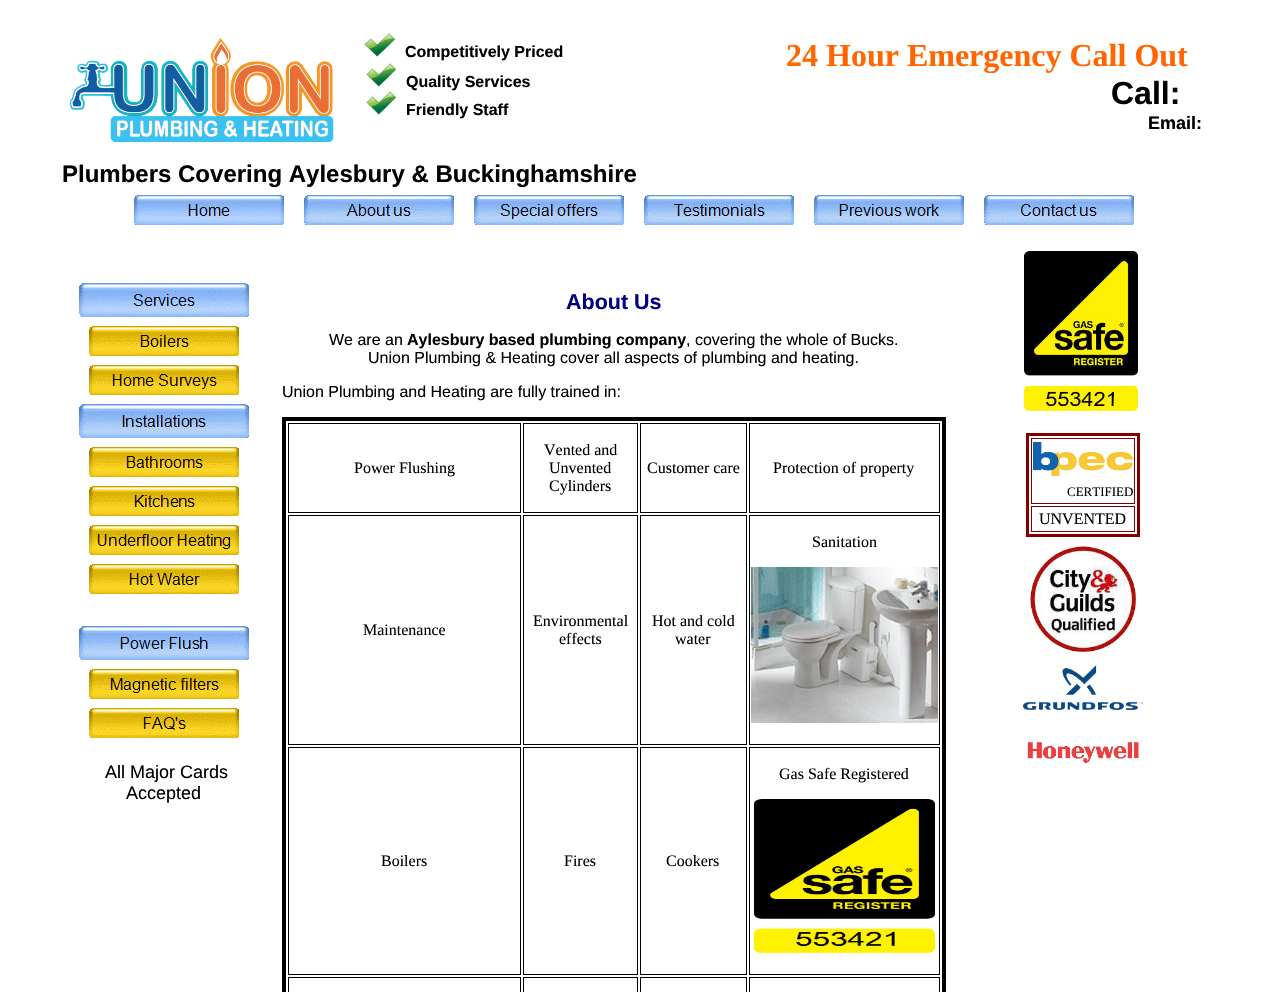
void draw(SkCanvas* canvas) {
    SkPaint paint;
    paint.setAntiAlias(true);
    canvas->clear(0xFFFFFFFF);
    canvas->drawImageRect(SkImages::DeferredFromEncodedData(SkData::MakeFromFileName("img1.png")), SkRect::MakeXYWH(69, 38, 265, 105), SkSamplingOptions());
    canvas->drawImageRect(SkImages::DeferredFromEncodedData(SkData::MakeFromFileName("img2.png")), SkRect::MakeXYWH(364, 33, 32, 24), SkSamplingOptions());
    SkFont font1(fontMgr->matchFamilyStyle("Liberation Sans", SkFontStyle::Bold()), 16);
    font1.setSubpixel(true);
    paint.setColor(0xFF000000);
    canvas->drawString("Competitively Priced", 405, 57, font1, paint);
    canvas->drawImageRect(SkImages::DeferredFromEncodedData(SkData::MakeFromFileName("img3.png")), SkRect::MakeXYWH(366, 63, 31, 24), SkSamplingOptions());
    canvas->drawString("Quality Services", 406, 87, font1, paint);
    canvas->drawImageRect(SkImages::DeferredFromEncodedData(SkData::MakeFromFileName("img3.png")), SkRect::MakeXYWH(366, 91, 31, 24), SkSamplingOptions());
    canvas->drawString("Friendly Staff", 406, 115, font1, paint);
    SkFont font2(fontMgr->matchFamilyStyle("Liberation Serif", SkFontStyle::Bold()), 32);
    font2.setSubpixel(true);
    paint.setColor(0xFFFF6600);
    canvas->drawString("24 Hour Emergency Call Out", 786, 66, font2, paint);
    SkFont font3(fontMgr->matchFamilyStyle("Liberation Sans", SkFontStyle::Bold()), 32);
    font3.setSubpixel(true);
    paint.setColor(0xFF000000);
    canvas->drawString("Call:", 1111, 104, font3, paint);
    SkFont font4(fontMgr->matchFamilyStyle("Liberation Sans", SkFontStyle::Bold()), 18);
    font4.setSubpixel(true);
    canvas->drawString("Email:", 1148, 129, font4, paint);
    SkFont font5(fontMgr->matchFamilyStyle("Liberation Sans", SkFontStyle::Bold()), 24);
    font5.setSubpixel(true);
    canvas->drawString("Plumbers Covering Aylesbury & Buckinghamshire", 62, 182, font5, paint);
    canvas->drawImageRect(SkImages::DeferredFromEncodedData(SkData::MakeFromFileName("img4.png")), SkRect::MakeXYWH(134, 195, 150, 30), SkSamplingOptions());
    canvas->drawImageRect(SkImages::DeferredFromEncodedData(SkData::MakeFromFileName("img5.png")), SkRect::MakeXYWH(304, 195, 150, 30), SkSamplingOptions());
    canvas->drawImageRect(SkImages::DeferredFromEncodedData(SkData::MakeFromFileName("img6.png")), SkRect::MakeXYWH(474, 195, 150, 30), SkSamplingOptions());
    canvas->drawImageRect(SkImages::DeferredFromEncodedData(SkData::MakeFromFileName("img7.png")), SkRect::MakeXYWH(644, 195, 150, 30), SkSamplingOptions());
    canvas->drawImageRect(SkImages::DeferredFromEncodedData(SkData::MakeFromFileName("img8.png")), SkRect::MakeXYWH(814, 195, 150, 30), SkSamplingOptions());
    canvas->drawImageRect(SkImages::DeferredFromEncodedData(SkData::MakeFromFileName("img9.png")), SkRect::MakeXYWH(984, 195, 150, 30), SkSamplingOptions());
    SkFont font6(fontMgr->matchFamilyStyle("Liberation Sans", SkFontStyle::Bold()), 21.5f);
    font6.setSubpixel(true);
    paint.setColor(0xFF000080);
    canvas->drawString("About Us", 566, 309, font6, paint);
    SkFont font7(fontMgr->matchFamilyStyle("Liberation Sans", SkFontStyle::Normal()), 16);
    font7.setSubpixel(true);
    paint.setColor(0xFF000000);
    canvas->drawString("We are an", 329, 345, font7, paint);
    canvas->drawString("Aylesbury based plumbing company", 407, 345, font1, paint);
    canvas->drawString(", covering the whole of Bucks.", 686, 345, font7, paint);
    canvas->drawString("Union Plumbing & Heating cover all aspects of plumbing and heating.", 368, 363, font7, paint);
    canvas->drawString("Union Plumbing and Heating are fully trained in:", 282, 397, font7, paint);
    paint.setStyle(SkPaint::kStroke_Style);
    paint.setStrokeWidth(4);
    canvas->drawRect(SkRect::MakeXYWH(284, 419, 660, 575), paint);
    paint.setStrokeWidth(1);
    canvas->drawRect(SkRect::MakeXYWH(288.5f, 423.5f, 232, 89), paint);
    SkFont font8(fontMgr->matchFamilyStyle("Liberation Serif", SkFontStyle::Normal()), 16);
    font8.setSubpixel(true);
    paint.setStyle(SkPaint::kFill_Style);
    canvas->drawString("Power Flushing", 354, 473, font8, paint);
    paint.setStyle(SkPaint::kStroke_Style);
    canvas->drawRect(SkRect::MakeXYWH(523.5f, 423.5f, 114, 89), paint);
    paint.setStyle(SkPaint::kFill_Style);
    canvas->drawString("Vented and", 544, 455, font8, paint);
    canvas->drawString("Unvented", 549, 473, font8, paint);
    canvas->drawString("Cylinders", 549, 491, font8, paint);
    paint.setStyle(SkPaint::kStroke_Style);
    canvas->drawRect(SkRect::MakeXYWH(640.5f, 423.5f, 106, 89), paint);
    paint.setStyle(SkPaint::kFill_Style);
    canvas->drawString("Customer care", 647, 473, font8, paint);
    paint.setStyle(SkPaint::kStroke_Style);
    canvas->drawRect(SkRect::MakeXYWH(749.5f, 423.5f, 190, 89), paint);
    paint.setStyle(SkPaint::kFill_Style);
    canvas->drawString("Protection of property", 773, 473, font8, paint);
    paint.setStyle(SkPaint::kStroke_Style);
    canvas->drawRect(SkRect::MakeXYWH(749.5f, 515.5f, 190, 229), paint);
    paint.setStyle(SkPaint::kFill_Style);
    canvas->drawString("Sanitation", 812, 547, font8, paint);
    canvas->drawImageRect(SkImages::DeferredFromEncodedData(SkData::MakeFromFileName("img10.png")), SkRect::MakeXYWH(751, 567, 187, 156), SkSamplingOptions());
    paint.setStyle(SkPaint::kStroke_Style);
    canvas->drawRect(SkRect::MakeXYWH(288.5f, 515.5f, 232, 229), paint);
    paint.setStyle(SkPaint::kFill_Style);
    canvas->drawString("Maintenance", 363, 635, font8, paint);
    paint.setStyle(SkPaint::kStroke_Style);
    canvas->drawRect(SkRect::MakeXYWH(523.5f, 515.5f, 114, 229), paint);
    paint.setStyle(SkPaint::kFill_Style);
    canvas->drawString("Environmental", 533, 626, font8, paint);
    canvas->drawString("effects", 559, 644, font8, paint);
    paint.setStyle(SkPaint::kStroke_Style);
    canvas->drawRect(SkRect::MakeXYWH(640.5f, 515.5f, 106, 229), paint);
    paint.setStyle(SkPaint::kFill_Style);
    canvas->drawString("Hot and cold", 652, 626, font8, paint);
    canvas->drawString("water", 675, 644, font8, paint);
    paint.setStyle(SkPaint::kStroke_Style);
    canvas->drawRect(SkRect::MakeXYWH(749.5f, 747.5f, 190, 227), paint);
    paint.setStyle(SkPaint::kFill_Style);
    canvas->drawString("Gas Safe Registered", 779, 779, font8, paint);
    canvas->drawImageRect(SkImages::DeferredFromEncodedData(SkData::MakeFromFileName("img11.png")), SkRect::MakeXYWH(754, 799, 181, 154), SkSamplingOptions());
    paint.setStyle(SkPaint::kStroke_Style);
    canvas->drawRect(SkRect::MakeXYWH(288.5f, 747.5f, 232, 227), paint);
    paint.setStyle(SkPaint::kFill_Style);
    canvas->drawString("Boilers", 381, 866, font8, paint);
    paint.setStyle(SkPaint::kStroke_Style);
    canvas->drawRect(SkRect::MakeXYWH(523.5f, 747.5f, 114, 227), paint);
    paint.setStyle(SkPaint::kFill_Style);
    canvas->drawString("Fires", 564, 866, font8, paint);
    paint.setStyle(SkPaint::kStroke_Style);
    canvas->drawRect(SkRect::MakeXYWH(640.5f, 747.5f, 106, 227), paint);
    paint.setStyle(SkPaint::kFill_Style);
    canvas->drawString("Cookers", 666, 866, font8, paint);
    paint.setStyle(SkPaint::kStroke_Style);
    canvas->drawRect(SkRect::MakeXYWH(288.5f, 977.5f, 232, 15), paint);
    canvas->drawRect(SkRect::MakeXYWH(523.5f, 977.5f, 114, 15), paint);
    canvas->drawRect(SkRect::MakeXYWH(640.5f, 977.5f, 106, 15), paint);
    canvas->drawRect(SkRect::MakeXYWH(749.5f, 977.5f, 190, 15), paint);
    canvas->drawImageRect(SkImages::DeferredFromEncodedData(SkData::MakeFromFileName("img12.png")), SkRect::MakeXYWH(1024, 251, 114, 160), SkSamplingOptions());
    paint.setStrokeWidth(3);
    paint.setColor(0xFF800000);
    canvas->drawRect(SkRect::MakeXYWH(1027.5f, 434.5f, 111, 101), paint);
    paint.setStrokeWidth(1);
    canvas->drawRect(SkRect::MakeXYWH(1031.5f, 438.5f, 103, 65), paint);
    canvas->drawImageRect(SkImages::DeferredFromEncodedData(SkData::MakeFromFileName("img13.png")), SkRect::MakeXYWH(1033, 442, 100, 34), SkSamplingOptions());
    SkFont font9(fontMgr->matchFamilyStyle("Liberation Serif", SkFontStyle::Normal()), 13);
    font9.setSubpixel(true);
    paint.setStyle(SkPaint::kFill_Style);
    paint.setColor(0xFF000000);
    canvas->drawString("CERTIFIED", 1067, 496, font9, paint);
    paint.setStyle(SkPaint::kStroke_Style);
    paint.setColor(0xFF800000);
    canvas->drawRect(SkRect::MakeXYWH(1031.5f, 506.5f, 103, 25), paint);
    paint.setStyle(SkPaint::kFill_Style);
    paint.setColor(0xFF000000);
    canvas->drawString("UNVENTED", 1039, 524, font8, paint);
    canvas->drawImageRect(SkImages::DeferredFromEncodedData(SkData::MakeFromFileName("img14.png")), SkRect::MakeXYWH(1030, 546, 106, 106), SkSamplingOptions());
    canvas->drawImageRect(SkImages::DeferredFromEncodedData(SkData::MakeFromFileName("img15.png")), SkRect::MakeXYWH(1023, 665, 120, 45), SkSamplingOptions());
    canvas->drawImageRect(SkImages::DeferredFromEncodedData(SkData::MakeFromFileName("img16.png")), SkRect::MakeXYWH(1027, 742, 112, 21), SkSamplingOptions());
    canvas->drawImageRect(SkImages::DeferredFromEncodedData(SkData::MakeFromFileName("img17.png")), SkRect::MakeXYWH(79, 283, 170, 34), SkSamplingOptions());
    canvas->drawImageRect(SkImages::DeferredFromEncodedData(SkData::MakeFromFileName("img18.png")), SkRect::MakeXYWH(89, 326, 150, 30), SkSamplingOptions());
    canvas->drawImageRect(SkImages::DeferredFromEncodedData(SkData::MakeFromFileName("img19.png")), SkRect::MakeXYWH(89, 365, 150, 30), SkSamplingOptions());
    canvas->drawImageRect(SkImages::DeferredFromEncodedData(SkData::MakeFromFileName("img20.png")), SkRect::MakeXYWH(79, 404, 170, 34), SkSamplingOptions());
    canvas->drawImageRect(SkImages::DeferredFromEncodedData(SkData::MakeFromFileName("img21.png")), SkRect::MakeXYWH(89, 447, 150, 30), SkSamplingOptions());
    canvas->drawImageRect(SkImages::DeferredFromEncodedData(SkData::MakeFromFileName("img22.png")), SkRect::MakeXYWH(89, 486, 150, 30), SkSamplingOptions());
    canvas->drawImageRect(SkImages::DeferredFromEncodedData(SkData::MakeFromFileName("img23.png")), SkRect::MakeXYWH(89, 525, 150, 30), SkSamplingOptions());
    canvas->drawImageRect(SkImages::DeferredFromEncodedData(SkData::MakeFromFileName("img24.png")), SkRect::MakeXYWH(89, 564, 150, 30), SkSamplingOptions());
    canvas->drawImageRect(SkImages::DeferredFromEncodedData(SkData::MakeFromFileName("img25.png")), SkRect::MakeXYWH(79, 626, 170, 34), SkSamplingOptions());
    canvas->drawImageRect(SkImages::DeferredFromEncodedData(SkData::MakeFromFileName("img26.png")), SkRect::MakeXYWH(89, 669, 150, 30), SkSamplingOptions());
    canvas->drawImageRect(SkImages::DeferredFromEncodedData(SkData::MakeFromFileName("img27.png")), SkRect::MakeXYWH(89, 708, 150, 30), SkSamplingOptions());
    SkFont font10(fontMgr->matchFamilyStyle("Liberation Sans", SkFontStyle::Normal()), 18);
    font10.setSubpixel(true);
    canvas->drawString("All Major Cards", 105, 778, font10, paint);
    canvas->drawString("Accepted", 126, 799, font10, paint);
}
